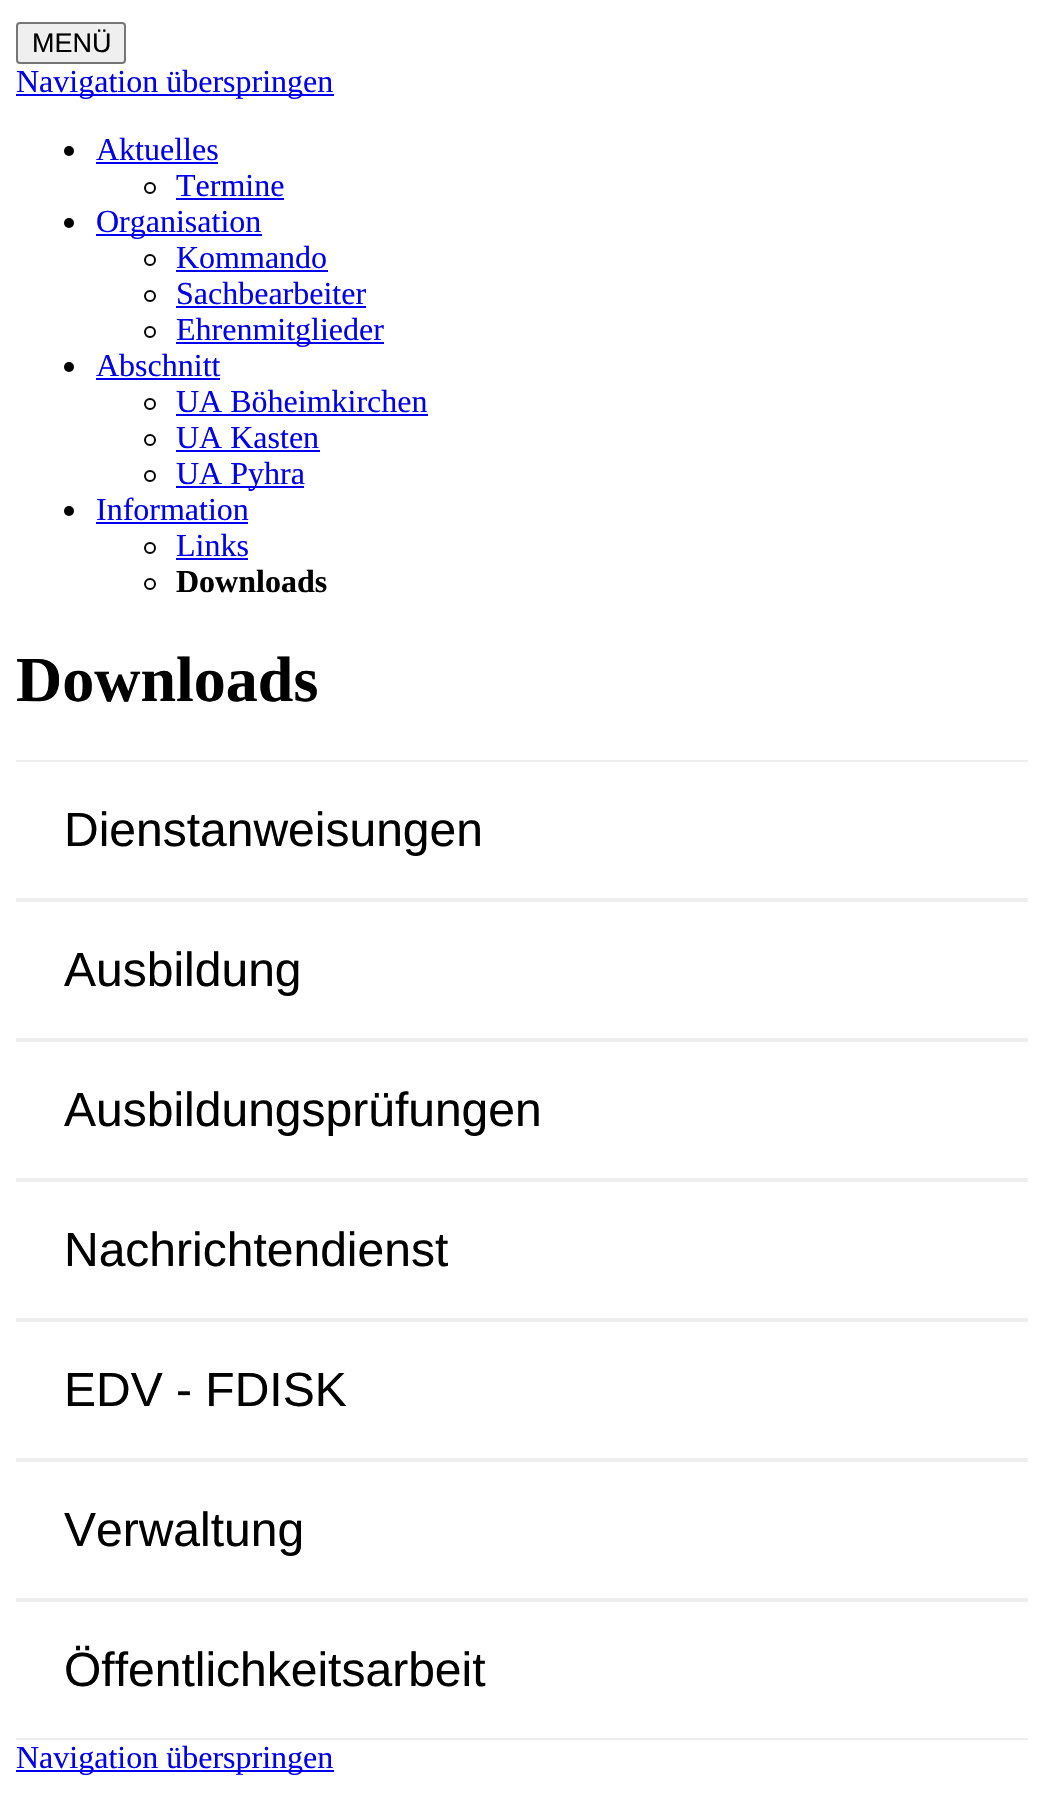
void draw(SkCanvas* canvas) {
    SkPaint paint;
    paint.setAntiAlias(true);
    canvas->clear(0xFFFFFFFF);
    paint.setColor(0xFFEFEFEF);
    canvas->drawRoundRect(SkRect::MakeXYWH(17, 23, 108, 40), 3, 3, paint);
    paint.setStyle(SkPaint::kStroke_Style);
    paint.setStrokeWidth(2);
    paint.setColor(0xFF767676);
    canvas->drawRoundRect(SkRect::MakeXYWH(17, 23, 108, 40), 3, 3, paint);
    SkFont font1(fontMgr->matchFamilyStyle("Liberation Sans", SkFontStyle::Normal()), 27);
    font1.setSubpixel(true);
    paint.setStyle(SkPaint::kFill_Style);
    paint.setColor(0xFF000000);
    canvas->drawString("MENÜ", 32, 52, font1, paint);
    paint.setColor(0xFF0000EE);
    canvas->drawRect(SkRect::MakeXYWH(16, 94, 318, 2), paint);
    SkFont font2(fontMgr->matchFamilyStyle("Liberation Serif", SkFontStyle::Normal()), 32);
    font2.setSubpixel(true);
    canvas->drawString("Navigation überspringen", 16, 92, font2, paint);
    paint.setColor(0xFF000000);
    canvas->drawCircle(69, 151, 5, paint);
    paint.setColor(0xFF0000EE);
    canvas->drawString("Aktuelles", 96, 160, font2, paint);
    canvas->drawRect(SkRect::MakeXYWH(96, 162, 122, 2), paint);
    paint.setStyle(SkPaint::kStroke_Style);
    paint.setColor(0xFF000000);
    canvas->drawCircle(150, 188, 5, paint);
    paint.setStyle(SkPaint::kFill_Style);
    paint.setColor(0xFF0000EE);
    canvas->drawString("Termine", 176, 196, font2, paint);
    canvas->drawRect(SkRect::MakeXYWH(176, 198, 108, 2), paint);
    paint.setColor(0xFF000000);
    canvas->drawCircle(69, 223, 5, paint);
    paint.setColor(0xFF0000EE);
    canvas->drawRect(SkRect::MakeXYWH(96, 234, 166, 2), paint);
    canvas->drawString("Organisation", 96, 232, font2, paint);
    paint.setStyle(SkPaint::kStroke_Style);
    paint.setColor(0xFF000000);
    canvas->drawCircle(150, 260, 5, paint);
    paint.setStyle(SkPaint::kFill_Style);
    paint.setColor(0xFF0000EE);
    canvas->drawString("Kommando", 176, 268, font2, paint);
    canvas->drawRect(SkRect::MakeXYWH(176, 270, 152, 2), paint);
    paint.setStyle(SkPaint::kStroke_Style);
    paint.setColor(0xFF000000);
    canvas->drawCircle(150, 296, 5, paint);
    paint.setStyle(SkPaint::kFill_Style);
    paint.setColor(0xFF0000EE);
    canvas->drawString("Sachbearbeiter", 176, 304, font2, paint);
    canvas->drawRect(SkRect::MakeXYWH(176, 306, 190, 2), paint);
    paint.setStyle(SkPaint::kStroke_Style);
    paint.setColor(0xFF000000);
    canvas->drawCircle(150, 332, 5, paint);
    paint.setStyle(SkPaint::kFill_Style);
    paint.setColor(0xFF0000EE);
    canvas->drawRect(SkRect::MakeXYWH(176, 342, 208, 2), paint);
    canvas->drawString("Ehrenmitglieder", 176, 340, font2, paint);
    paint.setColor(0xFF000000);
    canvas->drawCircle(69, 367, 5, paint);
    paint.setColor(0xFF0000EE);
    canvas->drawString("Abschnitt", 96, 376, font2, paint);
    canvas->drawRect(SkRect::MakeXYWH(96, 378, 124, 2), paint);
    paint.setStyle(SkPaint::kStroke_Style);
    paint.setColor(0xFF000000);
    canvas->drawCircle(150, 404, 5, paint);
    paint.setStyle(SkPaint::kFill_Style);
    paint.setColor(0xFF0000EE);
    canvas->drawString("UA Böheimkirchen", 176, 412, font2, paint);
    canvas->drawRect(SkRect::MakeXYWH(176, 414, 252, 2), paint);
    paint.setStyle(SkPaint::kStroke_Style);
    paint.setColor(0xFF000000);
    canvas->drawCircle(150, 440, 5, paint);
    paint.setStyle(SkPaint::kFill_Style);
    paint.setColor(0xFF0000EE);
    canvas->drawString("UA Kasten", 176, 448, font2, paint);
    canvas->drawRect(SkRect::MakeXYWH(176, 450, 144, 2), paint);
    paint.setStyle(SkPaint::kStroke_Style);
    paint.setColor(0xFF000000);
    canvas->drawCircle(150, 476, 5, paint);
    paint.setStyle(SkPaint::kFill_Style);
    paint.setColor(0xFF0000EE);
    canvas->drawRect(SkRect::MakeXYWH(176, 486, 128, 2), paint);
    canvas->drawString("UA Pyhra", 176, 484, font2, paint);
    paint.setColor(0xFF000000);
    canvas->drawCircle(69, 511, 5, paint);
    paint.setColor(0xFF0000EE);
    canvas->drawString("Information", 96, 520, font2, paint);
    canvas->drawRect(SkRect::MakeXYWH(96, 522, 152, 2), paint);
    paint.setStyle(SkPaint::kStroke_Style);
    paint.setColor(0xFF000000);
    canvas->drawCircle(150, 548, 5, paint);
    paint.setStyle(SkPaint::kFill_Style);
    paint.setColor(0xFF0000EE);
    canvas->drawString("Links", 176, 556, font2, paint);
    canvas->drawRect(SkRect::MakeXYWH(176, 558, 72, 2), paint);
    paint.setStyle(SkPaint::kStroke_Style);
    paint.setColor(0xFF000000);
    canvas->drawCircle(150, 584, 5, paint);
    SkFont font3(fontMgr->matchFamilyStyle("Liberation Serif", SkFontStyle::Bold()), 32);
    font3.setSubpixel(true);
    paint.setStyle(SkPaint::kFill_Style);
    canvas->drawString("Downloads", 176, 592, font3, paint);
    SkFont font4(fontMgr->matchFamilyStyle("Liberation Serif", SkFontStyle::Bold()), 64);
    font4.setSubpixel(true);
    canvas->drawString("Downloads", 16, 701, font4, paint);
    paint.setColor(0xFFEEEEEE);
    canvas->drawRect(SkRect::MakeXYWH(16, 898, 1012, 4), paint);
    canvas->drawRect(SkRect::MakeXYWH(16, 760, 1012, 2), paint);
    SkFont font5(fontMgr->matchFamilyStyle("Liberation Sans", SkFontStyle::Normal()), 48);
    font5.setSubpixel(true);
    paint.setColor(0xFF000000);
    canvas->drawString("Dienstanweisungen", 64, 846, font5, paint);
    paint.setColor(0xFFEEEEEE);
    canvas->drawRect(SkRect::MakeXYWH(16, 1038, 1012, 4), paint);
    paint.setColor(0xFF000000);
    canvas->drawString("Ausbildung", 64, 986, font5, paint);
    paint.setColor(0xFFEEEEEE);
    canvas->drawRect(SkRect::MakeXYWH(16, 1178, 1012, 4), paint);
    paint.setColor(0xFF000000);
    canvas->drawString("Ausbildungsprüfungen", 64, 1126, font5, paint);
    paint.setColor(0xFFEEEEEE);
    canvas->drawRect(SkRect::MakeXYWH(16, 1318, 1012, 4), paint);
    paint.setColor(0xFF000000);
    canvas->drawString("Nachrichtendienst", 64, 1266, font5, paint);
    paint.setColor(0xFFEEEEEE);
    canvas->drawRect(SkRect::MakeXYWH(16, 1458, 1012, 4), paint);
    paint.setColor(0xFF000000);
    canvas->drawString("EDV - FDISK", 64, 1406, font5, paint);
    paint.setColor(0xFFEEEEEE);
    canvas->drawRect(SkRect::MakeXYWH(16, 1598, 1012, 4), paint);
    paint.setColor(0xFF000000);
    canvas->drawString("Verwaltung", 64, 1546, font5, paint);
    paint.setColor(0xFFEEEEEE);
    canvas->drawRect(SkRect::MakeXYWH(16, 1738, 1012, 2), paint);
    paint.setColor(0xFF000000);
    canvas->drawString("Öffentlichkeitsarbeit", 64, 1686, font5, paint);
    paint.setColor(0xFF0000EE);
    canvas->drawRect(SkRect::MakeXYWH(16, 1770, 318, 2), paint);
    canvas->drawString("Navigation überspringen", 16, 1768, font2, paint);
}
